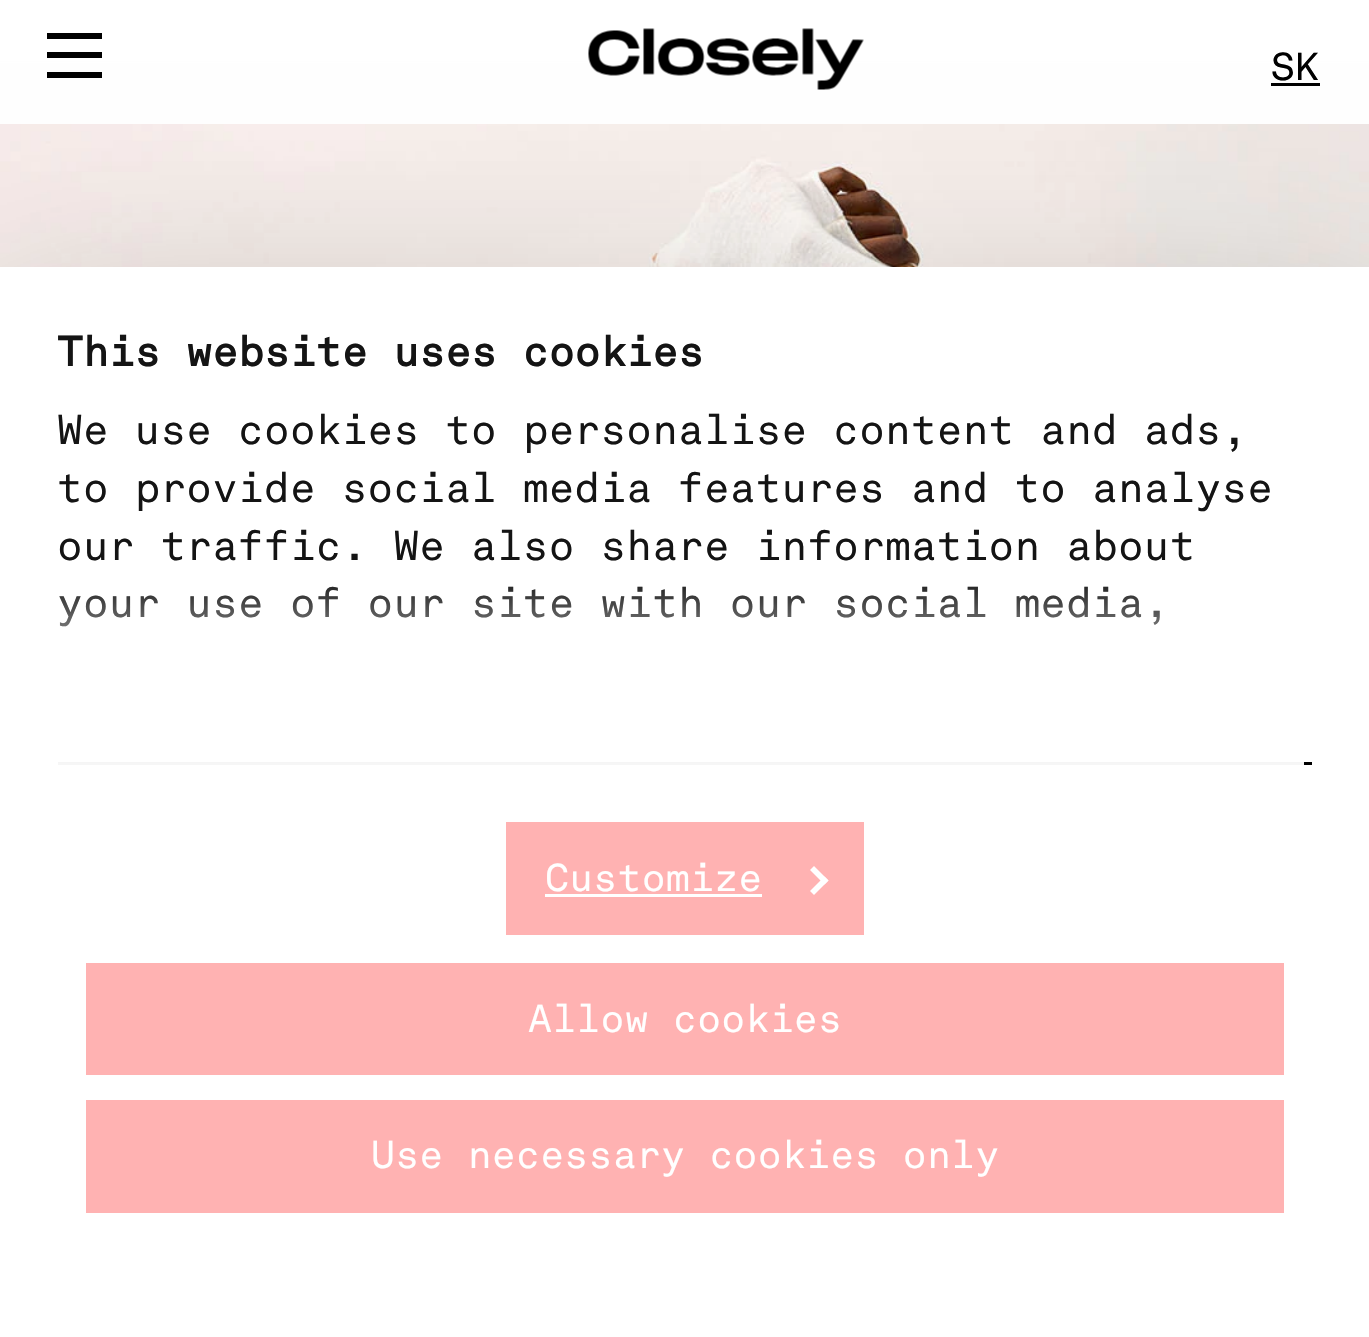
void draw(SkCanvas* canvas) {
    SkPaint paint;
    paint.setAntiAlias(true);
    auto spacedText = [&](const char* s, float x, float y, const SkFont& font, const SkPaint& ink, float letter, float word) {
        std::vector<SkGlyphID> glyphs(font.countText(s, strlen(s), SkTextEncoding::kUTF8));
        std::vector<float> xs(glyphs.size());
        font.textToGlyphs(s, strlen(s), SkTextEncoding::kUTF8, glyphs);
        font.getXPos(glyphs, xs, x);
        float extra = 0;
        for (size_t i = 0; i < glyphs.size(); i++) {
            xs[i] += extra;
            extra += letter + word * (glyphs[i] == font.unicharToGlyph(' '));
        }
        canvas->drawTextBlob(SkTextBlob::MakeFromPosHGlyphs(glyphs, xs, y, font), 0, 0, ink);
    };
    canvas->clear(0xFFFFFFFF);
    paint.setColor(0xFF000000);
    canvas->drawRect(SkRect::MakeXYWH(47, 52, 55, 6), paint);
    canvas->drawRect(SkRect::MakeXYWH(47, 33, 55, 6), paint);
    canvas->drawRect(SkRect::MakeXYWH(47, 72, 55, 6), paint);
    canvas->drawImageRect(SkImages::DeferredFromEncodedData(SkData::MakeFromFileName("img1.png")), SkRect::MakeXYWH(588, 28, 276, 62), SkSamplingOptions());
    SkFont font1(fontMgr->matchFamilyStyle("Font", SkFontStyle::Normal()), 38.5f);
    font1.setSubpixel(true);
    canvas->drawString("SK", 1271, 80, font1, paint);
    canvas->drawRect(SkRect::MakeXYWH(1271, 83, 49, 3), paint);
    canvas->drawImageRect(SkImages::DeferredFromEncodedData(SkData::MakeFromFileName("img2.png")), SkRect::MakeXYWH(0, 124, 1369, 143), SkSamplingOptions());
    paint.setColor(0x4D000000);
    paint.setMaskFilter(SkMaskFilter::MakeBlur(kNormal_SkBlurStyle, 96));
    canvas->drawRect(SkRect::MakeXYWH(0, 349, 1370, 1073), paint);
    paint.setMaskFilter(nullptr);
    paint.setColor(0xFFFFFFFF);
    canvas->drawRect(SkRect::MakeXYWH(0, 267, 1369, 1070), paint);
    paint.setColor(0xFF000000);
    canvas->drawRect(SkRect::MakeXYWH(58, 762, 1254, 3), paint);
    canvas->save();
    canvas->clipRect(SkRect::MakeXYWH(58, 325, 1254, 437));
    SkFont font2(fontMgr->matchFamilyStyle("Font", SkFontStyle::Bold()), 41.25f);
    font2.setSubpixel(true);
    paint.setColor(0xFF141414);
    spacedText("This website uses cookies", 57, 366, font2, paint, 0.3f, 0);
    canvas->restore();
    SkFont font3(fontMgr->matchFamilyStyle("Font", SkFontStyle::Normal()), 41.25f);
    font3.setSubpixel(true);
    spacedText("We use cookies to personalise content and ads,", 57, 444, font3, paint, 0.3f, 0);
    spacedText("to provide social media features and to analyse", 57, 502, font3, paint, 0.3f, 0);
    spacedText("our traffic. We also share information about", 57, 560, font3, paint, 0.3f, 0);
    spacedText("your use of our site with our social media,", 57, 617, font3, paint, 0.3f, 0);
    {
        const SkColor colors[] = {0xFFFFFFFF, 0xCCFFFFFF, 0x00FFFFFF};
        const float stops[] = {0, 0.5f, 1};
        const SkPoint ends[] = {{674, 782}, {674, 576}};
        paint.setShader(SkGradientShader::MakeLinear(ends, colors, stops, 3, SkTileMode::kClamp));
        paint.setAlpha(255);
    }
    canvas->drawRect(SkRect::MakeXYWH(58, 586, 1246, 179), paint);
    paint.setShader(nullptr);
    paint.setColor(0xFFFFB2B2);
    canvas->drawRect(SkRect::MakeXYWH(506, 822, 358, 113), paint);
    paint.setColor(0xFFFFFFFF);
    spacedText("Customize", 545, 891, font1, paint, 0.3f, 0);
    canvas->drawRect(SkRect::MakeXYWH(545, 894, 217, 3), paint);
    canvas->drawPath(SkPathBuilder().moveTo(814, 866).lineTo(828.5f, 880.5f).lineTo(824.5f, 884.5f).lineTo(810, 870).close().detach(), paint);
    canvas->drawPath(SkPathBuilder().moveTo(824.5f, 876.5f).lineTo(828.5f, 880.5f).lineTo(814, 895).lineTo(810, 891).close().detach(), paint);
    paint.setColor(0xFFFFB2B2);
    canvas->drawRect(SkRect::MakeXYWH(86, 963, 1198, 112), paint);
    paint.setColor(0xFFFFFFFF);
    spacedText("Allow cookies", 528, 1032, font1, paint, 0.3f, 0);
    paint.setColor(0xFFFFB2B2);
    canvas->drawRect(SkRect::MakeXYWH(86, 1100, 1198, 113), paint);
    paint.setColor(0xFFFFFFFF);
    spacedText("Use necessary cookies only", 371, 1168, font1, paint, 0.3f, 0);
}
